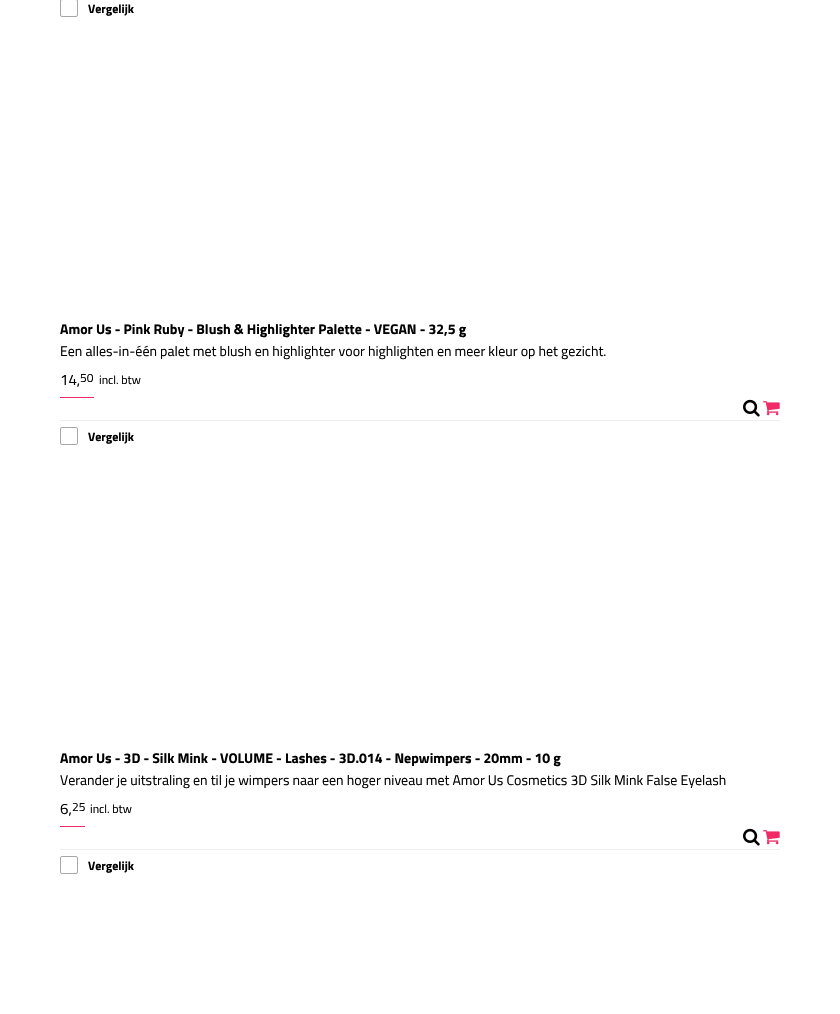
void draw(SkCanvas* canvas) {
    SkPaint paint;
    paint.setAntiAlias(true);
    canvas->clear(0xFFFFFFFF);
    paint.setStyle(SkPaint::kStroke_Style);
    paint.setStrokeWidth(1);
    paint.setColor(0xFFA7A7A7);
    canvas->drawRoundRect(SkRect::MakeXYWH(60.5f, -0.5f, 17, 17), 1.5f, 1.5f, paint);
    SkFont font1(fontMgr->matchFamilyStyle("Titillium Web", SkFontStyle::Bold()), 12);
    font1.setSubpixel(true);
    paint.setStyle(SkPaint::kFill_Style);
    paint.setColor(0xFF000000);
    canvas->drawString("Vergelijk", 88, 13, font1, paint);
    SkFont font2(fontMgr->matchFamilyStyle("Titillium Web", SkFontStyle::Bold()), 14);
    font2.setSubpixel(true);
    canvas->drawString("Amor Us - Pink Ruby - Blush & Highlighter Palette - VEGAN - 32,5 g", 60, 334, font2, paint);
    SkFont font3(fontMgr->matchFamilyStyle("Titillium Web", SkFontStyle::Normal()), 14);
    font3.setSubpixel(true);
    canvas->drawString("Een alles-in-één palet met blush en highlighter voor highlighten en meer kleur op het gezicht.", 60, 356, font3, paint);
    paint.setColor(0xFFEEEEEE);
    canvas->drawRect(SkRect::MakeXYWH(60, 420, 720, 1), paint);
    paint.setColor(0xFFF02A67);
    canvas->drawRect(SkRect::MakeXYWH(60, 397, 34, 1), paint);
    SkFont font4(fontMgr->matchFamilyStyle("Titillium Web", SkFontStyle::Normal()), 15);
    font4.setSubpixel(true);
    paint.setColor(0xFF000000);
    canvas->drawString("14,", 60, 385, font4, paint);
    SkFont font5(fontMgr->matchFamilyStyle("Titillium Web", SkFontStyle::Normal()), 12);
    font5.setSubpixel(true);
    canvas->drawString("50", 80, 382, font5, paint);
    canvas->drawString("incl. btw", 99, 384, font5, paint);
    canvas->drawImageRect(SkImages::DeferredFromEncodedData(SkData::MakeFromFileName("img1.png")), SkRect::MakeXYWH(743, 399, 17, 18), SkSamplingOptions());
    canvas->drawImageRect(SkImages::DeferredFromEncodedData(SkData::MakeFromFileName("img2.png")), SkRect::MakeXYWH(763, 401, 17, 15), SkSamplingOptions());
    paint.setStyle(SkPaint::kStroke_Style);
    paint.setColor(0xFFA7A7A7);
    canvas->drawRoundRect(SkRect::MakeXYWH(60.5f, 427.5f, 17, 17), 1.5f, 1.5f, paint);
    paint.setStyle(SkPaint::kFill_Style);
    paint.setColor(0xFF000000);
    canvas->drawString("Vergelijk", 88, 441, font1, paint);
    canvas->drawString("Amor Us - 3D - Silk Mink - VOLUME - Lashes - 3D.014 - Nepwimpers - 20mm - 10 g", 60, 763, font2, paint);
    canvas->drawString("Verander je uitstraling en til je wimpers naar een hoger niveau met Amor Us Cosmetics 3D Silk Mink False Eyelash", 60, 785, font3, paint);
    paint.setColor(0xFFEEEEEE);
    canvas->drawRect(SkRect::MakeXYWH(60, 849, 720, 1), paint);
    paint.setColor(0xFFF02A67);
    canvas->drawRect(SkRect::MakeXYWH(60, 826, 25, 1), paint);
    paint.setColor(0xFF000000);
    canvas->drawString("6,", 60, 814, font4, paint);
    canvas->drawString("25", 72, 811, font5, paint);
    canvas->drawString("incl. btw", 90, 813, font5, paint);
    canvas->drawImageRect(SkImages::DeferredFromEncodedData(SkData::MakeFromFileName("img1.png")), SkRect::MakeXYWH(743, 828, 17, 18), SkSamplingOptions());
    canvas->drawImageRect(SkImages::DeferredFromEncodedData(SkData::MakeFromFileName("img2.png")), SkRect::MakeXYWH(763, 830, 17, 15), SkSamplingOptions());
    paint.setStyle(SkPaint::kStroke_Style);
    paint.setColor(0xFFA7A7A7);
    canvas->drawRoundRect(SkRect::MakeXYWH(60.5f, 856.5f, 17, 17), 1.5f, 1.5f, paint);
    paint.setStyle(SkPaint::kFill_Style);
    paint.setColor(0xFF000000);
    canvas->drawString("Vergelijk", 88, 870, font1, paint);
}
